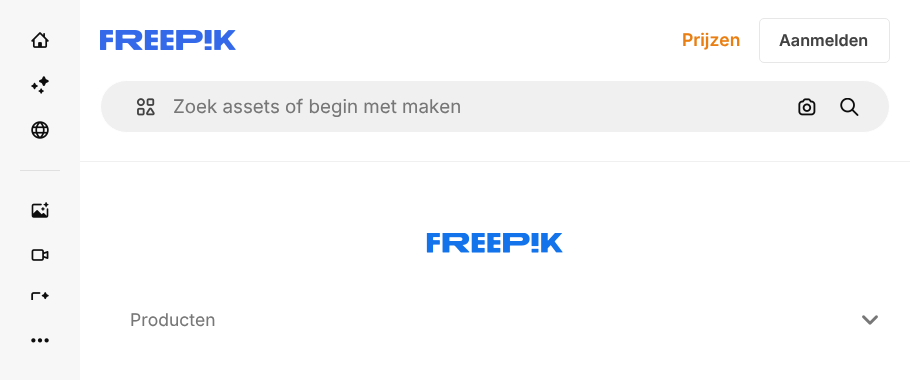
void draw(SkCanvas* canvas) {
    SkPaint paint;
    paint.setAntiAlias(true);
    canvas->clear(0xFFFFFFFF);
    paint.setColor(0xFFF7F7F7);
    canvas->drawRect(SkRect::MakeXYWH(0, 0, 80, 380), paint);
    canvas->drawImageRect(SkImages::DeferredFromEncodedData(SkData::MakeFromFileName("img1.png")), SkRect::MakeXYWH(31, 32, 18, 16), SkSamplingOptions());
    canvas->drawImageRect(SkImages::DeferredFromEncodedData(SkData::MakeFromFileName("img2.png")), SkRect::MakeXYWH(31, 76, 18, 18), SkSamplingOptions());
    canvas->drawImageRect(SkImages::DeferredFromEncodedData(SkData::MakeFromFileName("img3.png")), SkRect::MakeXYWH(31, 121, 18, 18), SkSamplingOptions());
    paint.setColor(0xFFE0E0E0);
    canvas->drawRect(SkRect::MakeXYWH(20, 170, 40, 1), paint);
    canvas->drawImageRect(SkImages::DeferredFromEncodedData(SkData::MakeFromFileName("img4.png")), SkRect::MakeXYWH(31, 202, 18, 16), SkSamplingOptions());
    canvas->drawImageRect(SkImages::DeferredFromEncodedData(SkData::MakeFromFileName("img5.png")), SkRect::MakeXYWH(31, 249, 18, 12), SkSamplingOptions());
    canvas->drawImageRect(SkImages::DeferredFromEncodedData(SkData::MakeFromFileName("img6.png")), SkRect::MakeXYWH(31, 292, 18, 8), SkSamplingOptions());
    canvas->drawImageRect(SkImages::DeferredFromEncodedData(SkData::MakeFromFileName("img7.png")), SkRect::MakeXYWH(31, 338, 18, 5), SkSamplingOptions());
    canvas->drawImageRect(SkImages::DeferredFromEncodedData(SkData::MakeFromFileName("img8.png")), SkRect::MakeXYWH(100, 30, 136, 20), SkSamplingOptions());
    SkFont font1(fontMgr->matchFamilyStyle("Inter", SkFontStyle(600, SkFontStyle::kNormal_Width, SkFontStyle::kUpright_Slant)), 17.5f);
    font1.setSubpixel(true);
    paint.setColor(0xFFEA7E11);
    canvas->drawString("Prijzen", 682, 46, font1, paint);
    paint.setStyle(SkPaint::kStroke_Style);
    paint.setStrokeWidth(1);
    paint.setColor(0xFFE7E7E7);
    canvas->drawRoundRect(SkRect::MakeXYWH(759.5f, 18.5f, 130, 44), 4.5f, 4.5f, paint);
    SkFont font2(fontMgr->matchFamilyStyle("Inter", SkFontStyle(600, SkFontStyle::kNormal_Width, SkFontStyle::kUpright_Slant)), 16.25f);
    font2.setSubpixel(true);
    paint.setStyle(SkPaint::kFill_Style);
    paint.setColor(0xFF424242);
    canvas->drawString("Aanmelden", 779, 46, font2, paint);
    paint.setColor(0xFFF0F0F0);
    canvas->drawRoundRect(SkRect::MakeXYWH(100.5f, 80.5f, 789, 52), 26, 26, paint);
    paint.setStyle(SkPaint::kStroke_Style);
    paint.setColor(0xFFFFFFFF);
    canvas->drawRoundRect(SkRect::MakeXYWH(100.5f, 80.5f, 789, 52), 26, 26, paint);
    canvas->drawImageRect(SkImages::DeferredFromEncodedData(SkData::MakeFromFileName("img9.png")), SkRect::MakeXYWH(136, 98, 19, 18), SkSamplingOptions());
    SkFont font3(fontMgr->matchFamilyStyle("Inter", SkFontStyle::Normal()), 18.75f);
    font3.setSubpixel(true);
    paint.setStyle(SkPaint::kFill_Style);
    paint.setColor(0xFF777777);
    canvas->drawString("Zoek assets of begin met maken", 173, 113, font3, paint);
    canvas->drawImageRect(SkImages::DeferredFromEncodedData(SkData::MakeFromFileName("img10.png")), SkRect::MakeXYWH(798, 98, 18, 18), SkSamplingOptions());
    canvas->drawImageRect(SkImages::DeferredFromEncodedData(SkData::MakeFromFileName("img11.png")), SkRect::MakeXYWH(840, 98, 19, 18), SkSamplingOptions());
    paint.setColor(0xFFF0F0F0);
    canvas->drawRect(SkRect::MakeXYWH(80, 161, 830, 1), paint);
    canvas->drawImageRect(SkImages::DeferredFromEncodedData(SkData::MakeFromFileName("img12.png")), SkRect::MakeXYWH(426, 233, 137, 20), SkSamplingOptions());
    SkFont font4(fontMgr->matchFamilyStyle("Inter", SkFontStyle::Normal()), 17.5f);
    font4.setSubpixel(true);
    paint.setColor(0xFF777777);
    canvas->drawString("Producten", 130, 326, font4, paint);
    canvas->drawImageRect(SkImages::DeferredFromEncodedData(SkData::MakeFromFileName("img13.png")), SkRect::MakeXYWH(862, 315, 16, 10), SkSamplingOptions());
}
